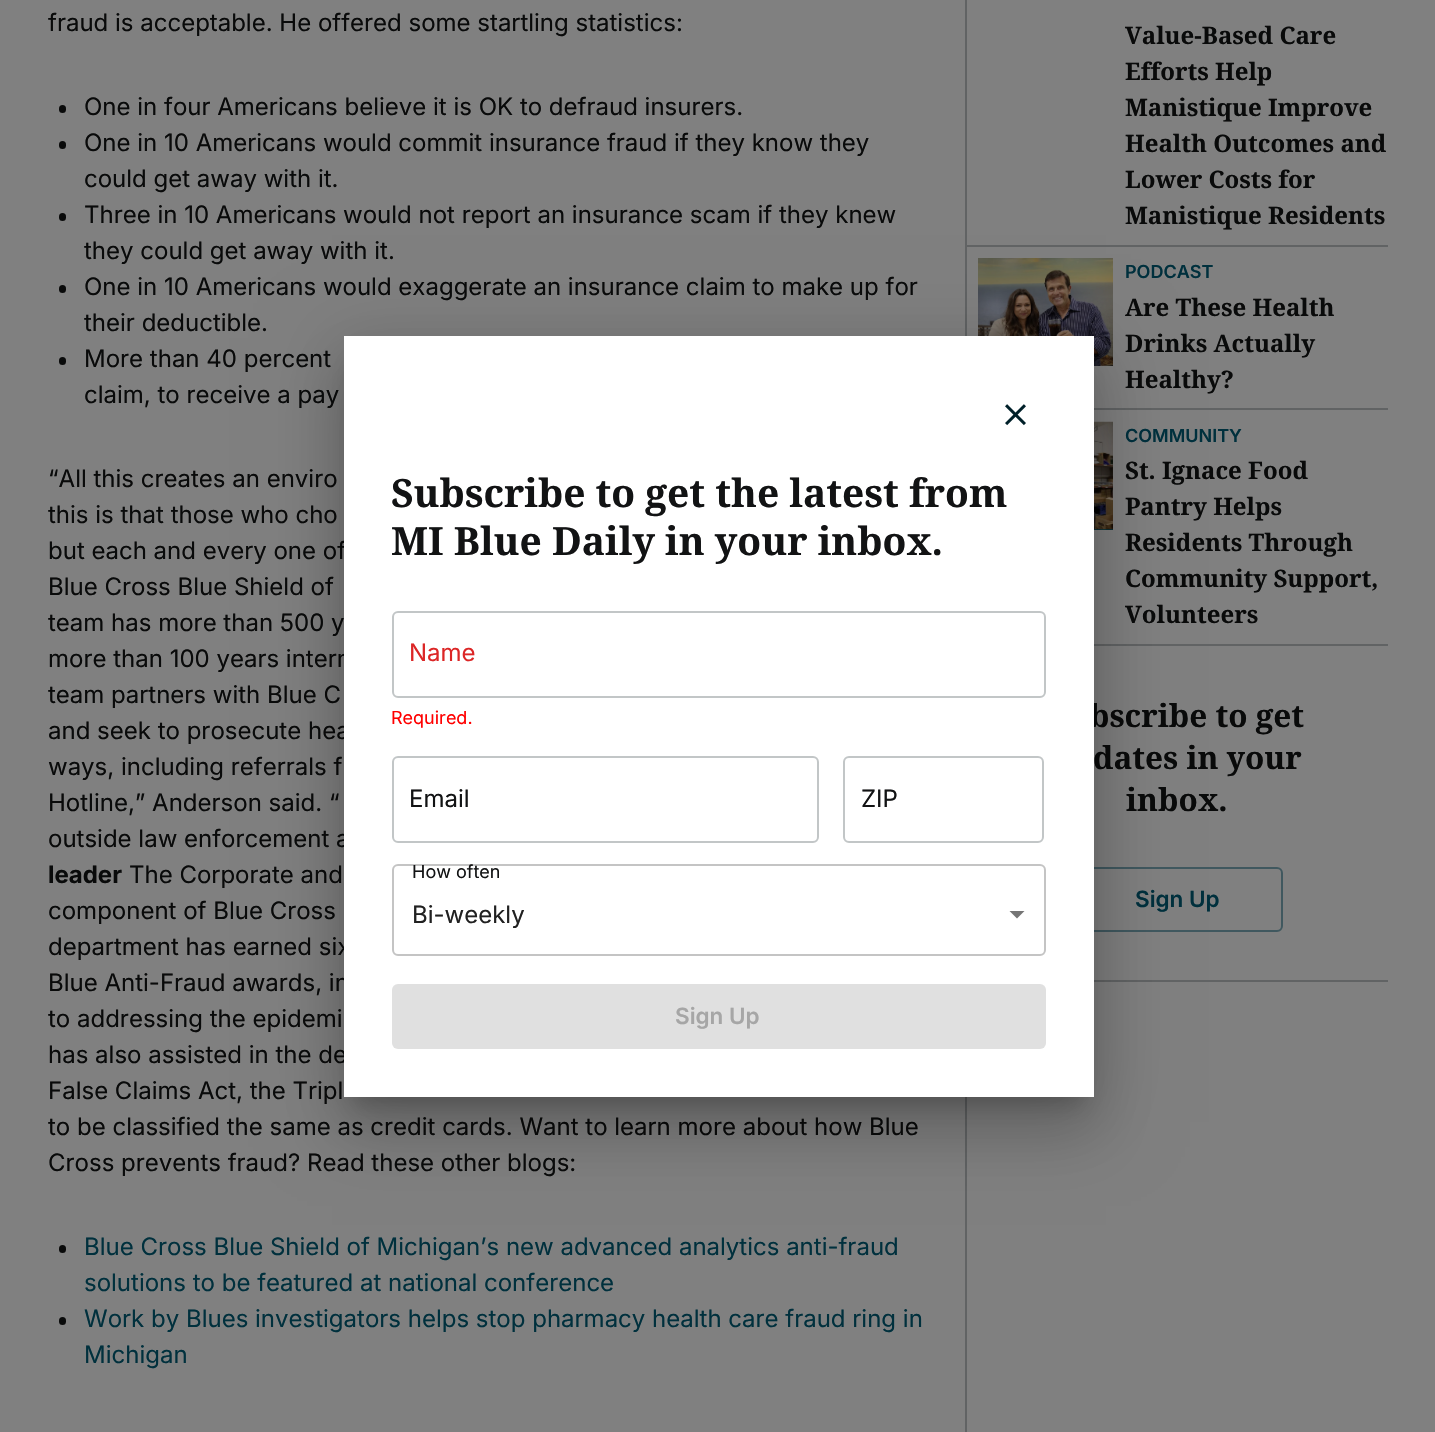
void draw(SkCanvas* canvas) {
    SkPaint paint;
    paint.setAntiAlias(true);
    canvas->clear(0xFF808080);
    SkFont font1(fontMgr->matchFamilyStyle("Inter", SkFontStyle::Normal()), 24);
    font1.setSubpixel(true);
    paint.setColor(0xFF090A0A);
    canvas->drawString("fraud is acceptable. He offered some startling statistics:", 48, 31, font1, paint);
    canvas->drawRoundRect(SkRect::MakeXYWH(59, 105, 7, 8), 3.5f, 3.5f, paint);
    canvas->drawString("One in four Americans believe it is OK to defraud insurers.", 84, 115, font1, paint);
    canvas->drawRoundRect(SkRect::MakeXYWH(59, 141, 7, 8), 3.5f, 3.5f, paint);
    canvas->drawString("One in 10 Americans would commit insurance fraud if they know they", 84, 151, font1, paint);
    canvas->drawString("could get away with it.", 84, 187, font1, paint);
    canvas->drawRoundRect(SkRect::MakeXYWH(59, 213, 7, 8), 3.5f, 3.5f, paint);
    canvas->drawString("Three in 10 Americans would not report an insurance scam if they knew", 84, 223, font1, paint);
    canvas->drawString("they could get away with it.", 84, 259, font1, paint);
    canvas->drawRoundRect(SkRect::MakeXYWH(59, 285, 7, 8), 3.5f, 3.5f, paint);
    canvas->drawString("One in 10 Americans would exaggerate an insurance claim to make up for", 84, 295, font1, paint);
    canvas->drawString("their deductible.", 84, 331, font1, paint);
    canvas->drawRoundRect(SkRect::MakeXYWH(59, 357, 7, 8), 3.5f, 3.5f, paint);
    canvas->drawString("More than 40 percent", 84, 367, font1, paint);
    canvas->drawString("claim, to receive a pay", 84, 403, font1, paint);
    canvas->drawString("“All this creates an enviro", 48, 487, font1, paint);
    canvas->drawString("this is that those who cho", 48, 523, font1, paint);
    canvas->drawString("but each and every one of", 48, 559, font1, paint);
    canvas->drawString("Blue Cross Blue Shield of", 48, 595, font1, paint);
    canvas->drawString("team has more than 500 y", 48, 631, font1, paint);
    canvas->drawString("more than 100 years intern", 48, 667, font1, paint);
    canvas->drawString("team partners with Blue C", 48, 703, font1, paint);
    canvas->drawString("and seek to prosecute hea", 48, 739, font1, paint);
    canvas->drawString("ways, including referrals f", 48, 775, font1, paint);
    canvas->drawString("Hotline,” Anderson said. “", 48, 811, font1, paint);
    canvas->drawString("outside law enforcement a", 48, 847, font1, paint);
    SkFont font2(fontMgr->matchFamilyStyle("Inter", SkFontStyle::Bold()), 24);
    font2.setSubpixel(true);
    canvas->drawString("leader", 48, 883, font2, paint);
    canvas->drawString("The Corporate and", 129, 883, font1, paint);
    canvas->drawString("component of Blue Cross", 48, 919, font1, paint);
    canvas->drawString("department has earned six", 48, 955, font1, paint);
    canvas->drawString("Blue Anti-Fraud awards, in", 48, 991, font1, paint);
    canvas->drawString("to addressing the epidemi", 48, 1027, font1, paint);
    canvas->drawString("has also assisted in the de", 48, 1063, font1, paint);
    canvas->drawString("False Claims Act, the Tripl", 48, 1099, font1, paint);
    canvas->drawString("to be classified the same as credit cards. Want to learn more about how Blue", 48, 1135, font1, paint);
    canvas->drawString("Cross prevents fraud? Read these other blogs:", 48, 1171, font1, paint);
    canvas->drawRoundRect(SkRect::MakeXYWH(59, 1245, 7, 8), 3.5f, 3.5f, paint);
    paint.setColor(0xFF00303D);
    canvas->drawString("Blue Cross Blue Shield of Michigan’s new advanced analytics anti-fraud", 84, 1255, font1, paint);
    canvas->drawString("solutions to be featured at national conference", 84, 1291, font1, paint);
    paint.setColor(0xFF090A0A);
    canvas->drawRoundRect(SkRect::MakeXYWH(59, 1317, 7, 8), 3.5f, 3.5f, paint);
    paint.setColor(0xFF00303D);
    canvas->drawString("Work by Blues investigators helps stop pharmacy health care fraud ring in", 84, 1327, font1, paint);
    canvas->drawString("Michigan", 84, 1363, font1, paint);
    paint.setColor(0xFF616364);
    canvas->drawRect(SkRect::MakeXYWH(965, 0, 2, 1432), paint);
    SkFont font3(fontMgr->matchFamilyStyle("Noto Serif", SkFontStyle::Bold()), 24);
    font3.setSubpixel(true);
    paint.setColor(0xFF090A0A);
    canvas->drawString("Value-Based Care", 1125, 44, font3, paint);
    canvas->drawString("Efforts Help", 1125, 80, font3, paint);
    canvas->drawString("Manistique Improve", 1125, 116, font3, paint);
    canvas->drawString("Health Outcomes and", 1125, 152, font3, paint);
    canvas->drawString("Lower Costs for", 1125, 188, font3, paint);
    canvas->drawString("Manistique Residents", 1125, 224, font3, paint);
    paint.setColor(0xFF616364);
    canvas->drawRect(SkRect::MakeXYWH(966, 245, 422, 2), paint);
    canvas->drawImageRect(SkImages::DeferredFromEncodedData(SkData::MakeFromFileName("img1.png")), SkRect::MakeXYWH(978, 258, 135, 108), SkSamplingOptions());
    SkFont font4(fontMgr->matchFamilyStyle("Inter", SkFontStyle(600, SkFontStyle::kNormal_Width, SkFontStyle::kUpright_Slant)), 18);
    font4.setSubpixel(true);
    paint.setColor(0xFF00303D);
    canvas->drawString("PODCAST", 1125, 278, font4, paint);
    paint.setColor(0xFF090A0A);
    canvas->drawString("Are These Health", 1125, 316, font3, paint);
    canvas->drawString("Drinks Actually", 1125, 352, font3, paint);
    canvas->drawString("Healthy?", 1125, 388, font3, paint);
    paint.setColor(0xFF616364);
    canvas->drawRect(SkRect::MakeXYWH(1094, 408, 294, 2), paint);
    canvas->drawRect(SkRect::MakeXYWH(1094, 644, 294, 2), paint);
    paint.setColor(0xFF00303D);
    canvas->drawRect(SkRect::MakeXYWH(1094, 529, 19, 1), paint);
    canvas->drawImageRect(SkImages::DeferredFromEncodedData(SkData::MakeFromFileName("img2.png")), SkRect::MakeXYWH(1094, 421, 19, 109), SkSamplingOptions());
    canvas->drawString("COMMUNITY", 1125, 442, font4, paint);
    paint.setColor(0xFF090A0A);
    canvas->drawString("St. Ignace Food", 1125, 479, font3, paint);
    canvas->drawString("Pantry Helps", 1125, 515, font3, paint);
    canvas->drawString("Residents Through", 1125, 551, font3, paint);
    canvas->drawString("Community Support,", 1125, 587, font3, paint);
    canvas->drawString("Volunteers", 1125, 623, font3, paint);
    paint.setColor(0xFF616364);
    canvas->drawRect(SkRect::MakeXYWH(1094, 980, 294, 2), paint);
    SkFont font5(fontMgr->matchFamilyStyle("Noto Serif", SkFontStyle::Bold()), 31.5f);
    font5.setSubpixel(true);
    paint.setColor(0xFF090A0A);
    canvas->drawString("bscribe to get", 1089, 727, font5, paint);
    canvas->drawString("dates in your", 1093, 769, font5, paint);
    canvas->drawString("inbox.", 1126, 811, font5, paint);
    paint.setStyle(SkPaint::kStroke_Style);
    paint.setStrokeWidth(2);
    paint.setColor(0xFF40585F);
    canvas->drawRoundRect(SkRect::MakeXYWH(1072, 868, 210, 63), 5, 5, paint);
    SkFont font6(fontMgr->matchFamilyStyle("Inter", SkFontStyle(600, SkFontStyle::kNormal_Width, SkFontStyle::kUpright_Slant)), 22.5f);
    font6.setSubpixel(true);
    paint.setStyle(SkPaint::kFill_Style);
    paint.setColor(0xFF00303D);
    canvas->drawString("Sign Up", 1135, 907, font6, paint);
    paint.setColor(0x1F000000);
    paint.setMaskFilter(SkMaskFilter::MakeBlur(kNormal_SkBlurStyle, 34.5f));
    canvas->drawRect(SkRect::MakeXYWH(332, 338, 774, 784), paint);
    paint.setMaskFilter(nullptr);
    paint.setColor(0x24000000);
    paint.setMaskFilter(SkMaskFilter::MakeBlur(kNormal_SkBlurStyle, 28.5f));
    canvas->drawRect(SkRect::MakeXYWH(339, 368, 759, 769), paint);
    paint.setMaskFilter(nullptr);
    paint.setColor(0x33000000);
    paint.setMaskFilter(SkMaskFilter::MakeBlur(kNormal_SkBlurStyle, 11));
    canvas->drawRect(SkRect::MakeXYWH(354, 363, 729, 740), paint);
    paint.setMaskFilter(nullptr);
    paint.setColor(0xFFFFFFFF);
    canvas->drawRect(SkRect::MakeXYWH(344, 336, 750, 761), paint);
    canvas->drawImageRect(SkImages::DeferredFromEncodedData(SkData::MakeFromFileName("img3.png")), SkRect::MakeXYWH(1005, 404, 21, 22), SkSamplingOptions());
    SkFont font7(fontMgr->matchFamilyStyle("Noto Serif", SkFontStyle::Bold()), 38.9f);
    font7.setSubpixel(true);
    paint.setColor(0xFF121314);
    canvas->drawString("Subscribe to get the latest from", 391, 507, font7, paint);
    canvas->drawString("MI Blue Daily in your inbox.", 391, 555, font7, paint);
    paint.setStyle(SkPaint::kStroke_Style);
    paint.setColor(0xFFC2C6C7);
    canvas->drawRoundRect(SkRect::MakeXYWH(393, 612, 652, 85), 5, 5, paint);
    paint.setStyle(SkPaint::kFill_Style);
    paint.setColor(0xFFDC2626);
    canvas->drawString("Name", 409, 661, font1, paint);
    SkFont font8(fontMgr->matchFamilyStyle("Inter", SkFontStyle::Normal()), 18);
    font8.setSubpixel(true);
    paint.setColor(0xFFFF0000);
    canvas->drawString("Required.", 391, 724, font8, paint);
    paint.setStyle(SkPaint::kStroke_Style);
    paint.setColor(0xFFC2C6C7);
    canvas->drawRoundRect(SkRect::MakeXYWH(393, 757, 425, 85), 5, 5, paint);
    paint.setStyle(SkPaint::kFill_Style);
    paint.setColor(0xFF121314);
    canvas->drawString("Email", 409, 807, font1, paint);
    paint.setStyle(SkPaint::kStroke_Style);
    paint.setColor(0xFFC2C6C7);
    canvas->drawRoundRect(SkRect::MakeXYWH(844, 757, 199, 85), 5, 5, paint);
    paint.setStyle(SkPaint::kFill_Style);
    paint.setColor(0xFF121314);
    canvas->drawString("ZIP", 861, 807, font1, paint);
    paint.setColor(0xFF757575);
    canvas->drawPath(SkPathBuilder().moveTo(1009.5f, 911).lineTo(1017, 918.5f).lineTo(1024.5f, 911).close().detach(), paint);
    paint.setStyle(SkPaint::kStroke_Style);
    paint.setColor(0xFFC4C4C4);
    canvas->drawRoundRect(SkRect::MakeXYWH(393, 865, 652, 90), 5, 5, paint);
    paint.setStyle(SkPaint::kFill_Style);
    paint.setColor(0xFF121314);
    canvas->drawString("How often", 412, 878, font8, paint);
    paint.setColor(0xFF212121);
    canvas->drawString("Bi-weekly", 412, 923, font1, paint);
    paint.setColor(0xFFE0E0E0);
    canvas->drawRoundRect(SkRect::MakeXYWH(392, 984, 654, 65), 6, 6, paint);
    paint.setColor(0xFFA6A6A6);
    canvas->drawString("Sign Up", 675, 1024, font6, paint);
}
